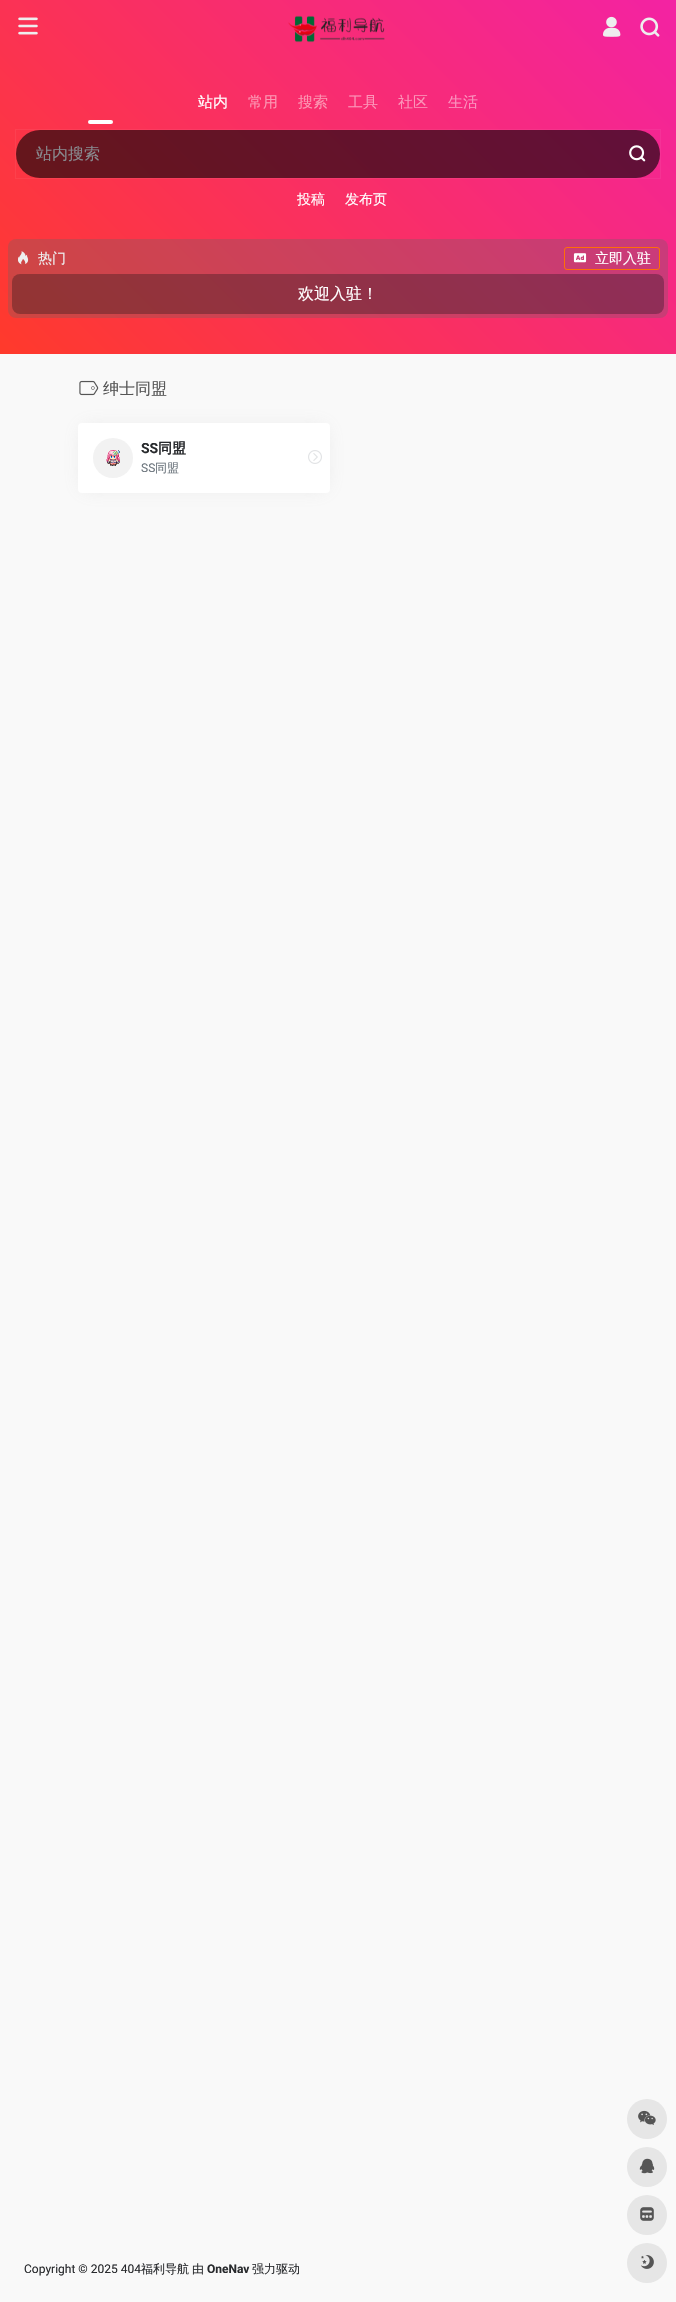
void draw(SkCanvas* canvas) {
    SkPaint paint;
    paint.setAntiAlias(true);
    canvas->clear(0xFFF9F9F9);
    {
        const SkColor colors[] = {0xFFFF3A2B, 0xFFED17DE, 0xFFF4275E};
        const float stops[] = {0, 0.5f, 1};
        const SkPoint ends[] = {{585, 939}, {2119, -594}};
        paint.setShader(SkGradientShader::MakeLinear(ends, colors, stops, 3, SkTileMode::kClamp));
        paint.setAlpha(255);
    }
    canvas->drawRect(SkRect::MakeXYWH(0, 0, 676, 354), paint);
    canvas->drawImageRect(SkImages::DeferredFromEncodedData(SkData::MakeFromFileName("img1.png")), SkRect::MakeXYWH(18, 17, 20, 18), SkSamplingOptions());
    canvas->drawImageRect(SkImages::DeferredFromEncodedData(SkData::MakeFromFileName("img2.png")), SkRect::MakeXYWH(288, 15, 97, 28), SkSamplingOptions());
    canvas->drawImageRect(SkImages::DeferredFromEncodedData(SkData::MakeFromFileName("img3.png")), SkRect::MakeXYWH(603, 16, 18, 21), SkSamplingOptions());
    canvas->drawImageRect(SkImages::DeferredFromEncodedData(SkData::MakeFromFileName("img4.png")), SkRect::MakeXYWH(640, 17, 20, 20), SkSamplingOptions());
    SkFont font1(fontMgr->matchFamilyStyle("WenQuanYi Zen Hei", SkFontStyle(500, SkFontStyle::kNormal_Width, SkFontStyle::kUpright_Slant)), 15);
    font1.setSubpixel(true);
    paint.setShader(nullptr);
    paint.setColor(0xFFFFFFFF);
    canvas->drawString("站内", 198, 107, font1, paint);
    paint.setColor(0xFFFC97B3);
    canvas->drawString("常用", 248, 107, font1, paint);
    canvas->drawString("搜索", 298, 107, font1, paint);
    paint.setColor(0xFFFC96B9);
    canvas->drawString("工具", 348, 107, font1, paint);
    canvas->drawString("社区", 398, 107, font1, paint);
    paint.setColor(0xFFFB94BF);
    canvas->drawString("生活", 448, 107, font1, paint);
    paint.setColor(0xFFFFFFFF);
    canvas->drawRoundRect(SkRect::MakeXYWH(88, 120, 25, 4), 2, 2, paint);
    paint.setColor(0x99000000);
    canvas->drawRoundRect(SkRect::MakeXYWH(16, 130, 644, 48), 24, 24, paint);
    paint.setStyle(SkPaint::kStroke_Style);
    paint.setStrokeWidth(1);
    paint.setColor(0x0DFFFFFF);
    canvas->drawRect(SkRect::MakeXYWH(15.5f, 129.5f, 645, 49), paint);
    SkFont font2(fontMgr->matchFamilyStyle("WenQuanYi Zen Hei", SkFontStyle(500, SkFontStyle::kNormal_Width, SkFontStyle::kUpright_Slant)), 16);
    font2.setSubpixel(true);
    paint.setStyle(SkPaint::kFill_Style);
    paint.setColor(0xFF888A8F);
    canvas->drawString("站内搜索", 36, 159, font2, paint);
    canvas->drawImageRect(SkImages::DeferredFromEncodedData(SkData::MakeFromFileName("img5.png")), SkRect::MakeXYWH(629, 145, 17, 17), SkSamplingOptions());
    SkFont font3(fontMgr->matchFamilyStyle("WenQuanYi Zen Hei", SkFontStyle(500, SkFontStyle::kNormal_Width, SkFontStyle::kUpright_Slant)), 14);
    font3.setSubpixel(true);
    paint.setColor(0xFFFFFFFF);
    canvas->drawString("投稿", 297, 204, font3, paint);
    canvas->drawString("发布页", 345, 204, font3, paint);
    paint.setColor(0x4D646464);
    canvas->drawRoundRect(SkRect::MakeXYWH(8, 239, 660, 79), 8, 8, paint);
    canvas->drawImageRect(SkImages::DeferredFromEncodedData(SkData::MakeFromFileName("img6.png")), SkRect::MakeXYWH(18, 251, 11, 14), SkSamplingOptions());
    paint.setColor(0xFFEEEEEE);
    canvas->drawString("热门", 38, 263, font3, paint);
    paint.setStyle(SkPaint::kStroke_Style);
    paint.setColor(0xFFFF6F06);
    canvas->drawRoundRect(SkRect::MakeXYWH(564.5f, 247.5f, 95, 22), 2.5f, 2.5f, paint);
    canvas->drawImageRect(SkImages::DeferredFromEncodedData(SkData::MakeFromFileName("img7.png")), SkRect::MakeXYWH(573, 253, 14, 10), SkSamplingOptions());
    paint.setStyle(SkPaint::kFill_Style);
    paint.setColor(0xFFFFFFFF);
    canvas->drawString("立即入驻", 595, 263, font3, paint);
    paint.setColor(0x4D0A0C0F);
    canvas->drawRoundRect(SkRect::MakeXYWH(12, 274, 652, 40), 8, 8, paint);
    paint.setColor(0xFFFFFFFF);
    canvas->drawString("欢迎入驻！", 298, 299, font2, paint);
    canvas->drawImageRect(SkImages::DeferredFromEncodedData(SkData::MakeFromFileName("img8.png")), SkRect::MakeXYWH(79, 380, 20, 16), SkSamplingOptions());
    paint.setColor(0xFF555555);
    canvas->drawString("绅士同盟", 103, 394, font2, paint);
    paint.setColor(0x339E9E9E);
    paint.setMaskFilter(SkMaskFilter::MakeBlur(kNormal_SkBlurStyle, 10));
    canvas->drawRect(SkRect::MakeXYWH(83, 428, 242, 60), paint);
    paint.setMaskFilter(nullptr);
    paint.setColor(0xFFFFFFFF);
    canvas->drawRoundRect(SkRect::MakeXYWH(78, 423, 252, 70), 4, 4, paint);
    paint.setColor(0xFFF2F2F2);
    canvas->drawCircle(113, 458, 20, paint);
    canvas->drawImageRect(SkImages::DeferredFromEncodedData(SkData::MakeFromFileName("img9.png")), SkRect::MakeXYWH(106, 450, 14, 16), SkSamplingOptions());
    SkFont font4(fontMgr->matchFamilyStyle("Roboto", SkFontStyle::Bold()), 14);
    font4.setSubpixel(true);
    paint.setColor(0xFF282A2D);
    canvas->drawString("SS", 141, 453, font4, paint);
    SkFont font5(fontMgr->matchFamilyStyle("WenQuanYi Zen Hei", SkFontStyle::Bold()), 14);
    font5.setSubpixel(true);
    canvas->drawString("同盟", 158, 453, font5, paint);
    SkFont font6(fontMgr->matchFamilyStyle("Roboto", SkFontStyle::Normal()), 12);
    font6.setSubpixel(true);
    paint.setColor(0xFF6C757D);
    canvas->drawString("SS", 141, 472, font6, paint);
    SkFont font7(fontMgr->matchFamilyStyle("WenQuanYi Zen Hei", SkFontStyle(500, SkFontStyle::kNormal_Width, SkFontStyle::kUpright_Slant)), 12);
    font7.setSubpixel(true);
    canvas->drawString("同盟", 155, 472, font7, paint);
    canvas->drawImageRect(SkImages::DeferredFromEncodedData(SkData::MakeFromFileName("img10.png")), SkRect::MakeXYWH(308, 450, 14, 14), SkSamplingOptions());
    paint.setColor(0xFF282A2D);
    canvas->drawString("Copyright © 2025 404", 24, 2273, font6, paint);
    canvas->drawString("福利导航", 141, 2273, font7, paint);
    canvas->drawString("由", 192, 2273, font7, paint);
    SkFont font8(fontMgr->matchFamilyStyle("Roboto", SkFontStyle::Bold()), 12);
    font8.setSubpixel(true);
    canvas->drawString("OneNav", 207, 2273, font8, paint);
    canvas->drawString("强力驱动", 252, 2273, font7, paint);
    paint.setColor(0xFFE6E6E6);
    canvas->drawCircle(647, 2119, 20, paint);
    canvas->drawImageRect(SkImages::DeferredFromEncodedData(SkData::MakeFromFileName("img11.png")), SkRect::MakeXYWH(638, 2110, 18, 15), SkSamplingOptions());
    canvas->drawCircle(647, 2167, 20, paint);
    canvas->drawImageRect(SkImages::DeferredFromEncodedData(SkData::MakeFromFileName("img12.png")), SkRect::MakeXYWH(639, 2158, 16, 16), SkSamplingOptions());
    canvas->drawCircle(647, 2215, 20, paint);
    canvas->drawImageRect(SkImages::DeferredFromEncodedData(SkData::MakeFromFileName("img13.png")), SkRect::MakeXYWH(640, 2207, 14, 14), SkSamplingOptions());
    canvas->drawCircle(647, 2263, 20, paint);
    canvas->drawImageRect(SkImages::DeferredFromEncodedData(SkData::MakeFromFileName("img14.png")), SkRect::MakeXYWH(641, 2255, 13, 14), SkSamplingOptions());
}
